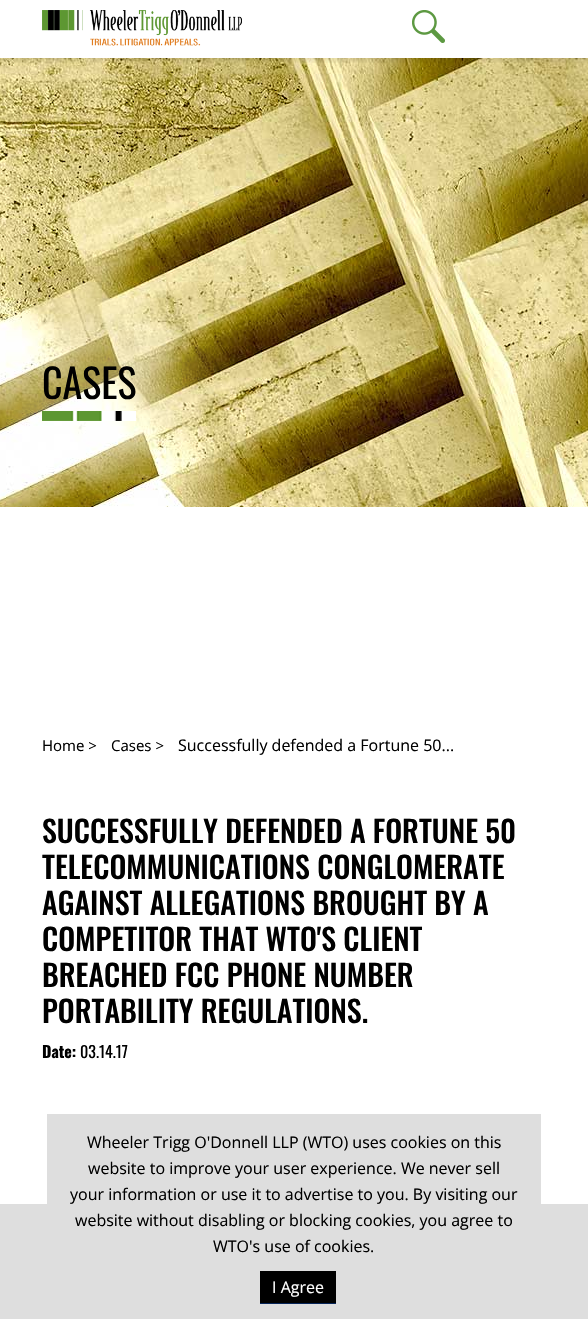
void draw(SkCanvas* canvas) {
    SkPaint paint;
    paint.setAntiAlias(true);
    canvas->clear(0xFFFFFFFF);
    canvas->drawImageRect(SkImages::DeferredFromEncodedData(SkData::MakeFromFileName("img3.png")), SkRect::MakeXYWH(0, 58, 588, 449), SkSamplingOptions());
    canvas->save();
    canvas->clipRect(SkRect::MakeXYWH(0, 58, 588, 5));
    paint.setColor(0x1A000000);
    paint.setMaskFilter(SkMaskFilter::MakeBlur(kNormal_SkBlurStyle, 2.5f));
    canvas->drawRect(SkRect::MakeXYWH(0, 3, 588, 58), paint);
    paint.setMaskFilter(nullptr);
    canvas->restore();
    canvas->drawImageRect(SkImages::DeferredFromEncodedData(SkData::MakeFromFileName("img1.png")), SkRect::MakeXYWH(42, 10, 200, 36), SkSamplingOptions());
    canvas->drawImageRect(SkImages::DeferredFromEncodedData(SkData::MakeFromFileName("img2.png")), SkRect::MakeXYWH(412, 10, 33, 33), SkSamplingOptions());
    canvas->save();
    canvas->clipPath(SkPathBuilder(SkPathFillType::kEvenOdd).moveTo(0, 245).lineTo(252, 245).lineTo(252, 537).lineTo(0, 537).close().moveTo(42, 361).lineTo(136, 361).lineTo(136, 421).lineTo(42, 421).close().detach(), true);
    paint.setColor(0x4DFFFFFF);
    paint.setMaskFilter(SkMaskFilter::MakeBlur(kNormal_SkBlurStyle, 25));
    canvas->drawRect(SkRect::MakeXYWH(2, 321, 174, 140), paint);
    paint.setMaskFilter(nullptr);
    canvas->restore();
    canvas->drawRect(SkRect::MakeXYWH(42, 361, 94, 50), paint);
    SkFont font1(fontMgr->matchFamilyStyle("Oswald", SkFontStyle::Normal()), 40);
    font1.setSubpixel(true);
    paint.setColor(0xFF000000);
    canvas->drawString("CASES", 42, 399, font1, paint);
    canvas->drawImageRect(SkImages::DeferredFromEncodedData(SkData::MakeFromFileName("img4.png")), SkRect::MakeXYWH(42, 411, 94, 10), SkSamplingOptions());
    SkFont font2(fontMgr->matchFamilyStyle("Open Sans", SkFontStyle::Normal()), 15);
    font2.setSubpixel(true);
    canvas->drawString("Home >", 42, 751, font2, paint);
    canvas->drawString("Cases >", 111, 751, font2, paint);
    SkFont font3(fontMgr->matchFamilyStyle("Open Sans", SkFontStyle::Normal()), 16);
    font3.setSubpixel(true);
    canvas->drawString("Successfully defended a Fortune 50...", 178, 751, font3, paint);
    SkFont font4(fontMgr->matchFamilyStyle("Oswald", SkFontStyle(500, SkFontStyle::kNormal_Width, SkFontStyle::kUpright_Slant)), 30);
    font4.setSubpixel(true);
    canvas->drawString("SUCCESSFULLY DEFENDED A FORTUNE 50", 42, 843, font4, paint);
    canvas->drawString("TELECOMMUNICATIONS CONGLOMERATE", 42, 879, font4, paint);
    canvas->drawString("AGAINST ALLEGATIONS BROUGHT BY A", 42, 915, font4, paint);
    canvas->drawString("COMPETITOR THAT WTO'S CLIENT", 42, 951, font4, paint);
    canvas->drawString("BREACHED FCC PHONE NUMBER", 42, 987, font4, paint);
    canvas->drawString("PORTABILITY REGULATIONS.", 42, 1023, font4, paint);
    SkFont font5(fontMgr->matchFamilyStyle("Oswald", SkFontStyle::Bold()), 16);
    font5.setSubpixel(true);
    canvas->drawString("Date:", 42, 1058, font5, paint);
    SkFont font6(fontMgr->matchFamilyStyle("Oswald", SkFontStyle::Normal()), 16);
    font6.setSubpixel(true);
    canvas->drawString("03.14.17", 80, 1058, font6, paint);
    paint.setColor(0xFFDEDEDE);
    canvas->drawRect(SkRect::MakeXYWH(0, 1204, 588, 115), paint);
    canvas->drawRect(SkRect::MakeXYWH(47, 1114, 494, 90), paint);
    paint.setColor(0xFF000000);
    canvas->drawString("Wheeler Trigg O'Donnell LLP (WTO) uses cookies on this", 87, 1148, font3, paint);
    canvas->drawString("website to improve your user experience. We never sell", 88, 1174, font3, paint);
    canvas->drawString("your information or use it to advertise to you. By visiting our", 70, 1200, font3, paint);
    canvas->drawString("website without disabling or blocking cookies, you agree to", 75, 1226, font3, paint);
    canvas->drawString("WTO's use of cookies.", 213, 1252, font3, paint);
    canvas->drawRect(SkRect::MakeXYWH(260, 1271, 76, 32), paint);
    paint.setColor(0xFF072559);
    canvas->drawRect(SkRect::MakeXYWH(260, 1303, 76, 1), paint);
    paint.setColor(0xFFFFFFFF);
    canvas->drawString("I Agree", 272, 1293, font3, paint);
}
